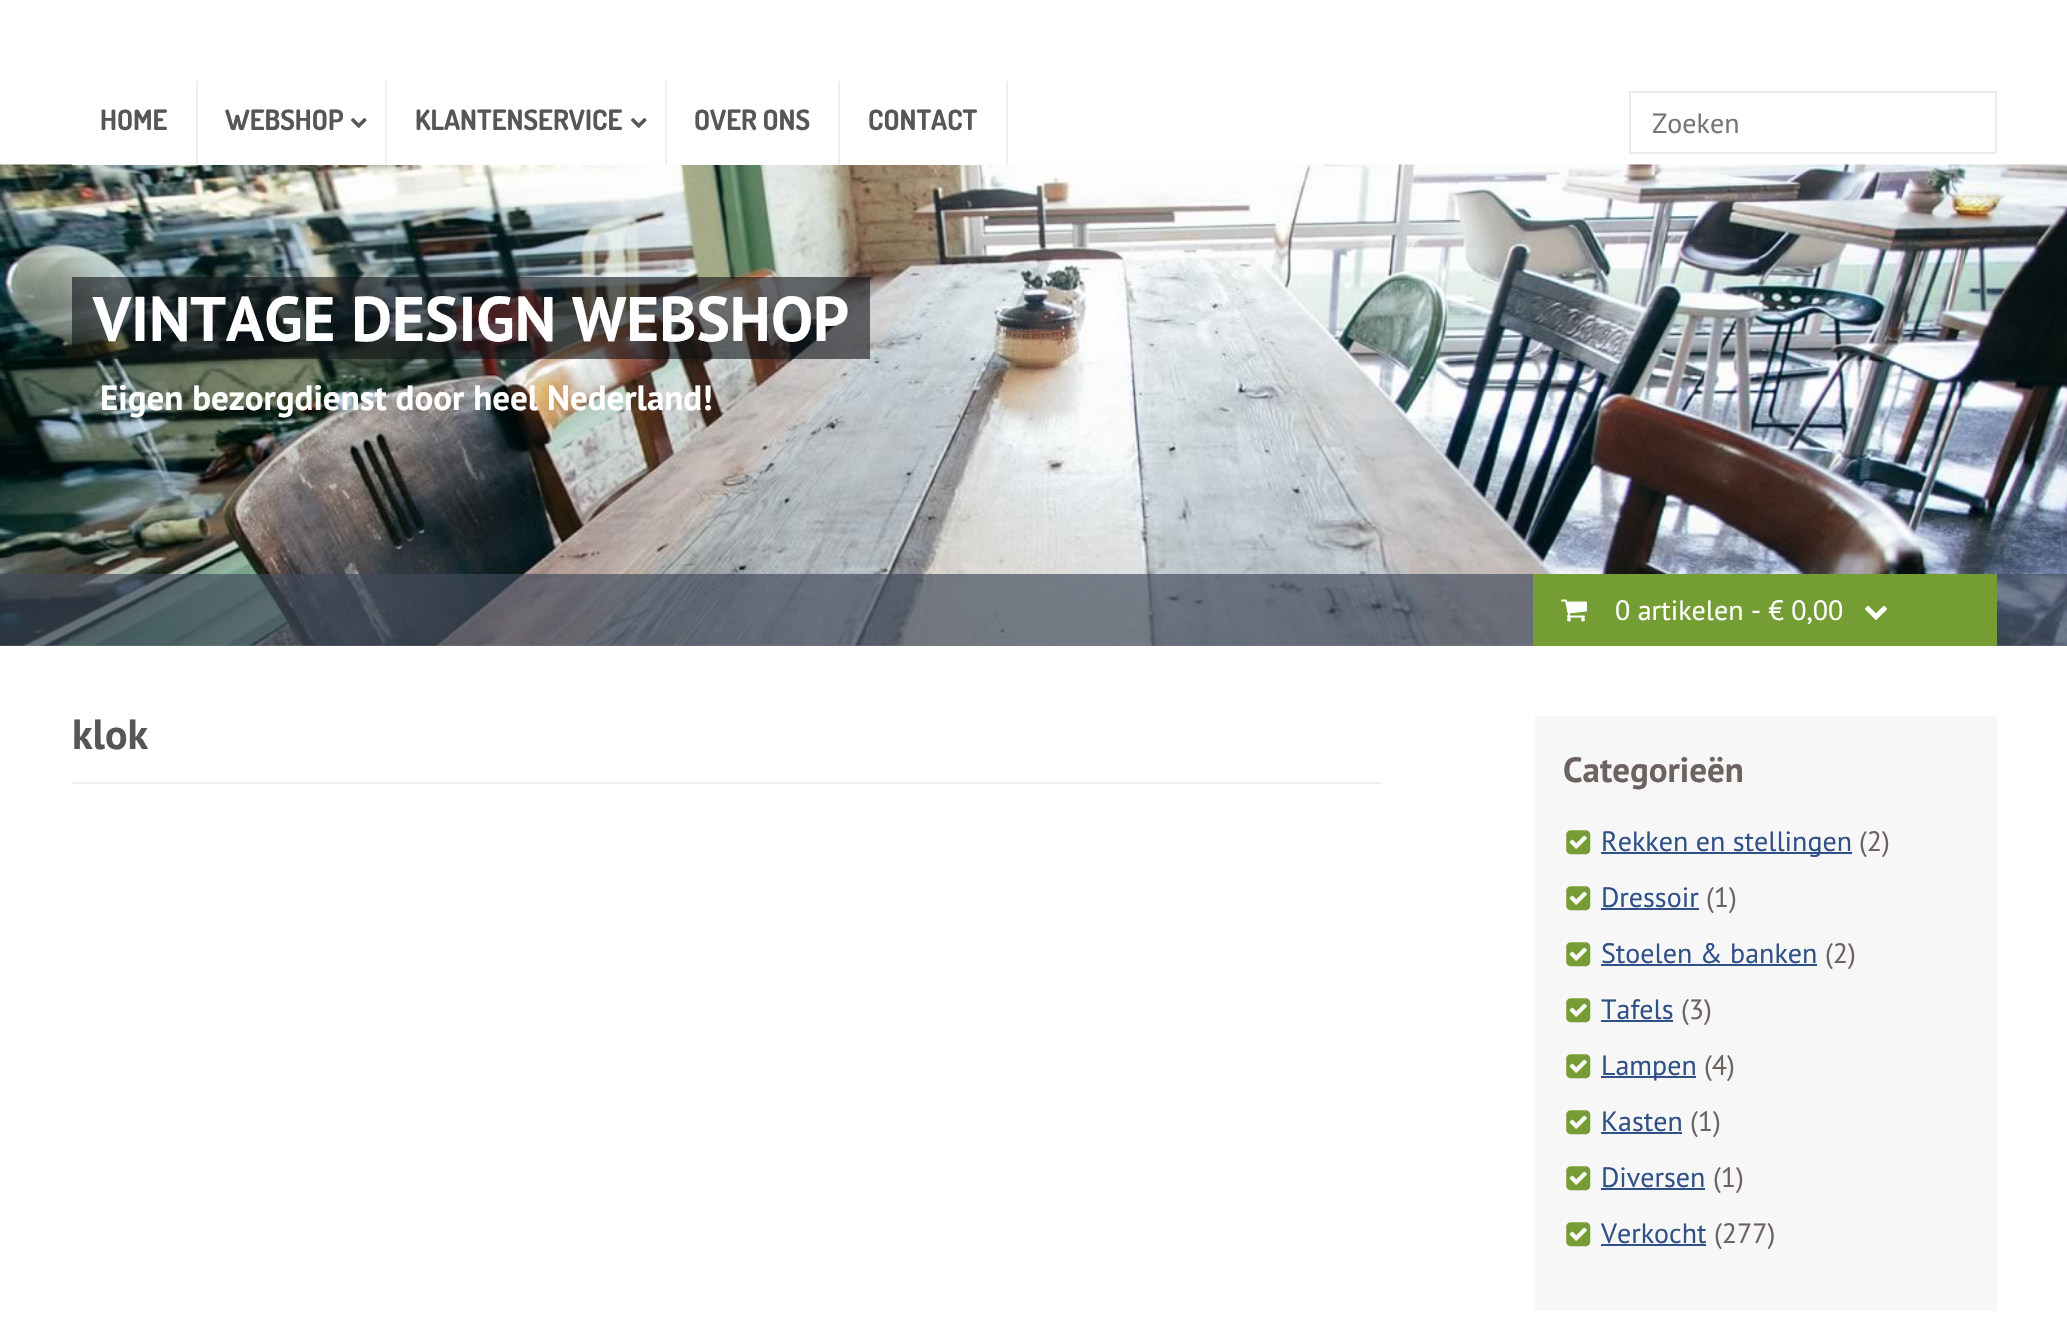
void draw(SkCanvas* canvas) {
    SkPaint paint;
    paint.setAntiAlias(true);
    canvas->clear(0xFFFFFFFF);
    canvas->drawImageRect(SkImages::DeferredFromEncodedData(SkData::MakeFromFileName("img2.png")), SkRect::MakeXYWH(0, 164, 2067, 482), SkSamplingOptions());
    paint.setColor(0xFFEEEFE6);
    canvas->drawRect(SkRect::MakeXYWH(196, 81, 2, 84), paint);
    paint.setColor(0xFFFFFFFF);
    canvas->drawRect(SkRect::MakeXYWH(72, 164, 124, 1), paint);
    SkFont font1(fontMgr->matchFamilyStyle("Dosis", SkFontStyle::Bold()), 28);
    font1.setSubpixel(true);
    paint.setColor(0xFF565656);
    canvas->drawString("HOME", 100, 130, font1, paint);
    paint.setColor(0xFFEEEFE6);
    canvas->drawRect(SkRect::MakeXYWH(385, 81, 2, 84), paint);
    paint.setColor(0xFFFFFFFF);
    canvas->drawRect(SkRect::MakeXYWH(198, 164, 187, 1), paint);
    paint.setColor(0xFF565656);
    canvas->drawString("WEBSHOP", 225, 130, font1, paint);
    canvas->drawImageRect(SkImages::DeferredFromEncodedData(SkData::MakeFromFileName("img1.png")), SkRect::MakeXYWH(350, 118, 17, 10), SkSamplingOptions());
    paint.setColor(0xFFEEEFE6);
    canvas->drawRect(SkRect::MakeXYWH(665, 81, 2, 84), paint);
    paint.setColor(0xFFFFFFFF);
    canvas->drawRect(SkRect::MakeXYWH(387, 164, 278, 1), paint);
    paint.setColor(0xFF565656);
    canvas->drawString("KLANTENSERVICE", 415, 130, font1, paint);
    canvas->drawImageRect(SkImages::DeferredFromEncodedData(SkData::MakeFromFileName("img1.png")), SkRect::MakeXYWH(630, 118, 17, 10), SkSamplingOptions());
    paint.setColor(0xFFEEEFE6);
    canvas->drawRect(SkRect::MakeXYWH(838, 81, 2, 84), paint);
    paint.setColor(0xFFFFFFFF);
    canvas->drawRect(SkRect::MakeXYWH(667, 164, 171, 1), paint);
    paint.setColor(0xFF565656);
    canvas->drawString("OVER ONS", 694, 130, font1, paint);
    paint.setColor(0xFFEEEFE6);
    canvas->drawRect(SkRect::MakeXYWH(1006, 81, 2, 84), paint);
    paint.setColor(0xFFFFFFFF);
    canvas->drawRect(SkRect::MakeXYWH(840, 164, 166, 1), paint);
    paint.setColor(0xFF565656);
    canvas->drawString("CONTACT", 868, 130, font1, paint);
    paint.setStyle(SkPaint::kStroke_Style);
    paint.setStrokeWidth(2);
    paint.setColor(0xFFEAEAEA);
    canvas->drawRect(SkRect::MakeXYWH(1630, 92, 366, 61), paint);
    SkFont font2(fontMgr->matchFamilyStyle("PT Sans", SkFontStyle::Normal()), 28);
    font2.setSubpixel(true);
    paint.setStyle(SkPaint::kFill_Style);
    paint.setColor(0xFF757575);
    canvas->drawString("Zoeken", 1652, 133, font2, paint);
    paint.setColor(0x990F1115);
    canvas->drawRect(SkRect::MakeXYWH(72, 277, 798, 82), paint);
    SkFont font3(fontMgr->matchFamilyStyle("PT Sans", SkFontStyle::Bold()), 63);
    font3.setSubpixel(true);
    paint.setColor(0xFFFFFFFF);
    canvas->drawString("VINTAGE DESIGN WEBSHOP", 93, 341, font3, paint);
    SkFont font4(fontMgr->matchFamilyStyle("PT Sans", SkFontStyle::Bold()), 35);
    font4.setSubpixel(true);
    canvas->drawString("Eigen bezorgdienst door heel Nederland!", 100, 410, font4, paint);
    paint.setColor(0xA83E495A);
    canvas->drawRect(SkRect::MakeXYWH(0, 574, 2067, 72), paint);
    paint.setColor(0xFF749D34);
    canvas->drawRect(SkRect::MakeXYWH(1533, 574, 464, 72), paint);
    canvas->drawImageRect(SkImages::DeferredFromEncodedData(SkData::MakeFromFileName("img3.png")), SkRect::MakeXYWH(1561, 599, 26, 23), SkSamplingOptions());
    paint.setColor(0xFFFFFFFF);
    canvas->drawString("0 artikelen - € 0,00", 1615, 620, font2, paint);
    canvas->drawImageRect(SkImages::DeferredFromEncodedData(SkData::MakeFromFileName("img4.png")), SkRect::MakeXYWH(1865, 605, 22, 15), SkSamplingOptions());
    paint.setColor(0xFFF0F0F0);
    canvas->drawRect(SkRect::MakeXYWH(72, 782, 1309, 2), paint);
    SkFont font5(fontMgr->matchFamilyStyle("PT Sans", SkFontStyle::Bold()), 42);
    font5.setSubpixel(true);
    paint.setColor(0xFF565656);
    canvas->drawString("klok", 72, 749, font5, paint);
    paint.setColor(0xFFF7F7F7);
    canvas->drawRect(SkRect::MakeXYWH(1535, 716, 462, 595), paint);
    paint.setColor(0xFF6C6360);
    canvas->drawString("Categorieën", 1563, 782, font4, paint);
    canvas->drawImageRect(SkImages::DeferredFromEncodedData(SkData::MakeFromFileName("img5.png")), SkRect::MakeXYWH(1566, 830, 25, 25), SkSamplingOptions());
    paint.setColor(0xFF305088);
    canvas->drawRect(SkRect::MakeXYWH(1601, 852, 251, 2), paint);
    canvas->drawString("Rekken en stellingen", 1601, 851, font2, paint);
    paint.setColor(0xFF6C6360);
    canvas->drawString("(2)", 1859, 851, font2, paint);
    canvas->drawImageRect(SkImages::DeferredFromEncodedData(SkData::MakeFromFileName("img5.png")), SkRect::MakeXYWH(1566, 886, 25, 25), SkSamplingOptions());
    paint.setColor(0xFF305088);
    canvas->drawString("Dressoir", 1601, 907, font2, paint);
    canvas->drawRect(SkRect::MakeXYWH(1601, 908, 98, 2), paint);
    paint.setColor(0xFF6C6360);
    canvas->drawString("(1)", 1706, 907, font2, paint);
    canvas->drawImageRect(SkImages::DeferredFromEncodedData(SkData::MakeFromFileName("img5.png")), SkRect::MakeXYWH(1566, 942, 25, 25), SkSamplingOptions());
    paint.setColor(0xFF305088);
    canvas->drawString("Stoelen & banken", 1601, 963, font2, paint);
    canvas->drawRect(SkRect::MakeXYWH(1601, 964, 216, 2), paint);
    paint.setColor(0xFF6C6360);
    canvas->drawString("(2)", 1825, 963, font2, paint);
    canvas->drawImageRect(SkImages::DeferredFromEncodedData(SkData::MakeFromFileName("img5.png")), SkRect::MakeXYWH(1566, 998, 25, 25), SkSamplingOptions());
    paint.setColor(0xFF305088);
    canvas->drawString("Tafels", 1601, 1019, font2, paint);
    canvas->drawRect(SkRect::MakeXYWH(1601, 1020, 72, 2), paint);
    paint.setColor(0xFF6C6360);
    canvas->drawString("(3)", 1681, 1019, font2, paint);
    canvas->drawImageRect(SkImages::DeferredFromEncodedData(SkData::MakeFromFileName("img5.png")), SkRect::MakeXYWH(1566, 1054, 25, 25), SkSamplingOptions());
    paint.setColor(0xFF305088);
    canvas->drawRect(SkRect::MakeXYWH(1601, 1076, 95, 2), paint);
    canvas->drawString("Lampen", 1601, 1075, font2, paint);
    paint.setColor(0xFF6C6360);
    canvas->drawString("(4)", 1704, 1075, font2, paint);
    canvas->drawImageRect(SkImages::DeferredFromEncodedData(SkData::MakeFromFileName("img5.png")), SkRect::MakeXYWH(1566, 1110, 25, 25), SkSamplingOptions());
    paint.setColor(0xFF305088);
    canvas->drawString("Kasten", 1601, 1131, font2, paint);
    canvas->drawRect(SkRect::MakeXYWH(1601, 1132, 81, 2), paint);
    paint.setColor(0xFF6C6360);
    canvas->drawString("(1)", 1690, 1131, font2, paint);
    canvas->drawImageRect(SkImages::DeferredFromEncodedData(SkData::MakeFromFileName("img5.png")), SkRect::MakeXYWH(1566, 1166, 25, 25), SkSamplingOptions());
    paint.setColor(0xFF305088);
    canvas->drawString("Diversen", 1601, 1187, font2, paint);
    canvas->drawRect(SkRect::MakeXYWH(1601, 1188, 104, 2), paint);
    paint.setColor(0xFF6C6360);
    canvas->drawString("(1)", 1713, 1187, font2, paint);
    canvas->drawImageRect(SkImages::DeferredFromEncodedData(SkData::MakeFromFileName("img5.png")), SkRect::MakeXYWH(1566, 1222, 25, 25), SkSamplingOptions());
    paint.setColor(0xFF305088);
    canvas->drawString("Verkocht", 1601, 1243, font2, paint);
    canvas->drawRect(SkRect::MakeXYWH(1601, 1244, 105, 2), paint);
    paint.setColor(0xFF6C6360);
    canvas->drawString("(277)", 1714, 1243, font2, paint);
}
